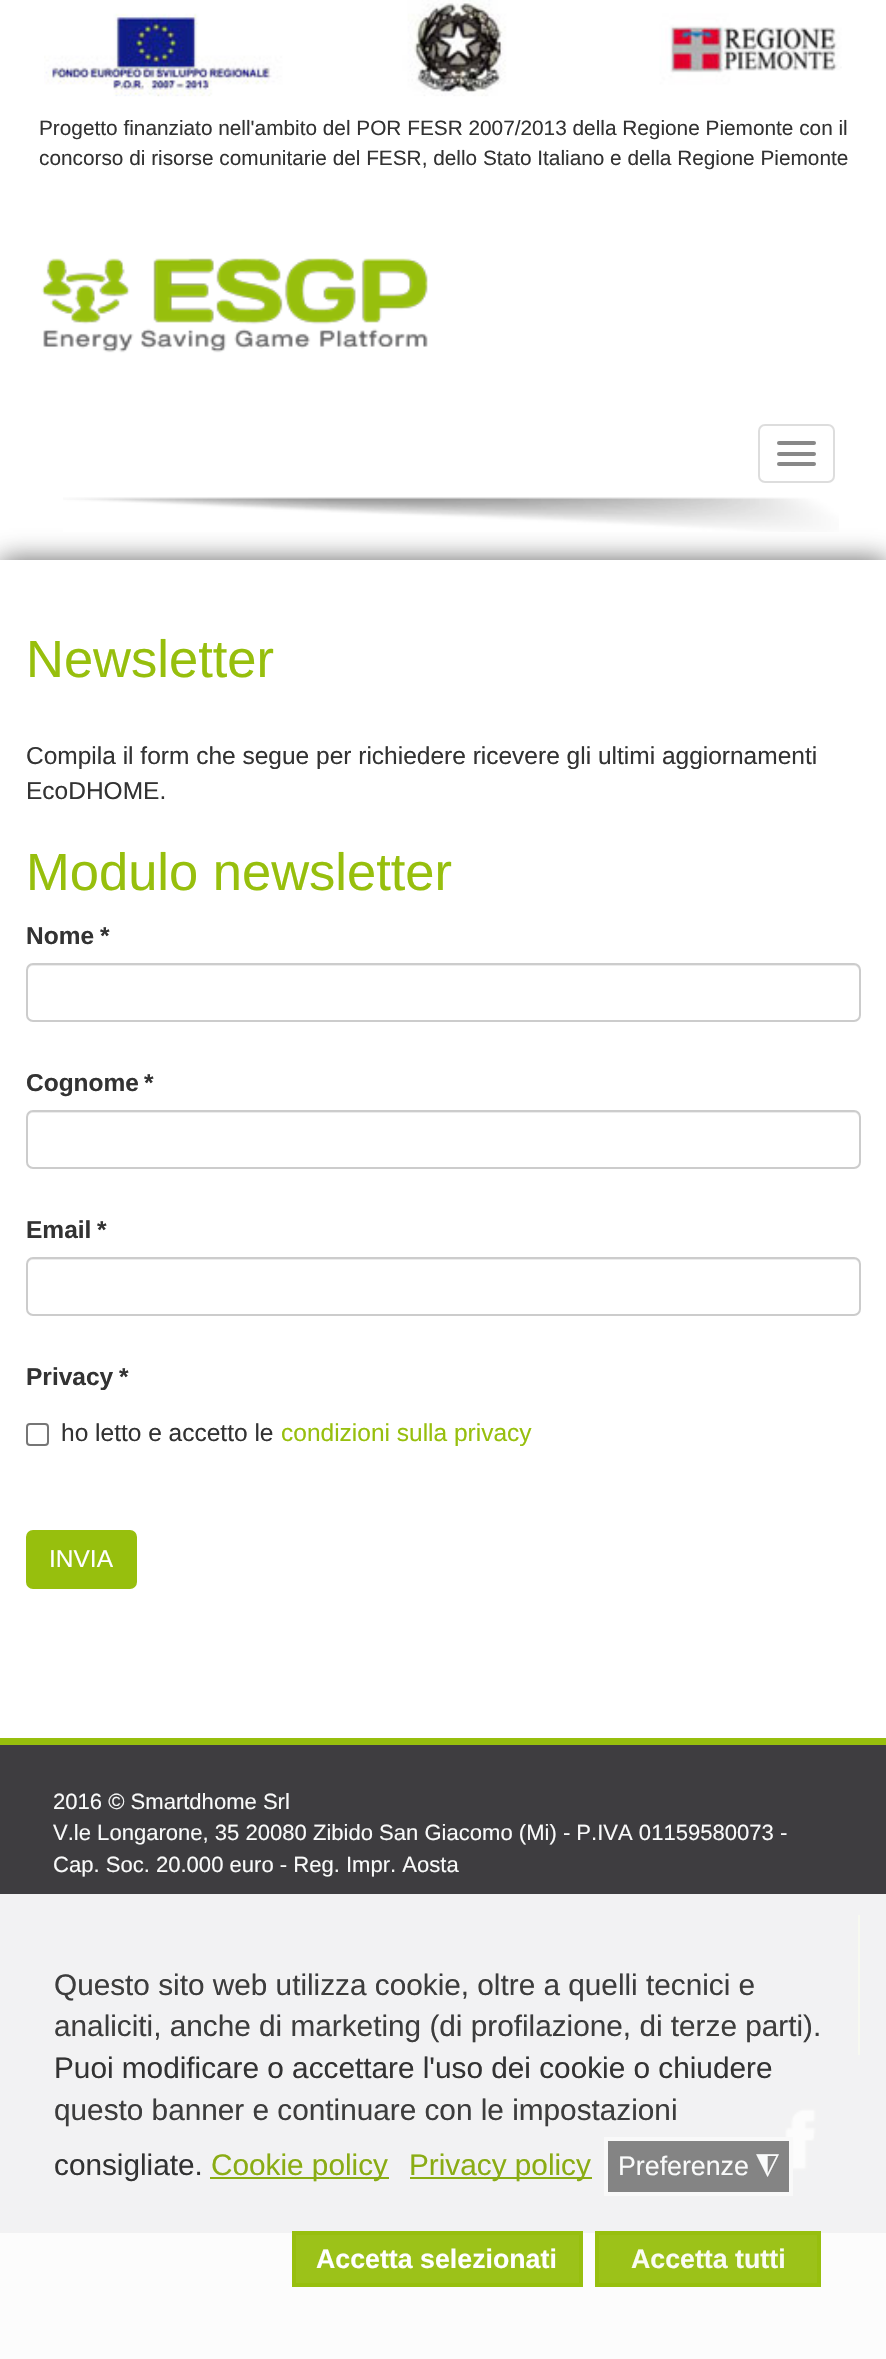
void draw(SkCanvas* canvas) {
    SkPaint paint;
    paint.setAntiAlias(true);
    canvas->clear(0xFFFFFFFF);
    paint.setColor(0xFFFCFCFC);
    canvas->drawRect(SkRect::MakeXYWH(0, 2233, 886, 126), paint);
    paint.setColor(0xFF9CC219);
    canvas->drawRect(SkRect::MakeXYWH(296, 2235, 283, 48), paint);
    canvas->drawImageRect(SkImages::DeferredFromEncodedData(SkData::MakeFromFileName("img1.png")), SkRect::MakeXYWH(44, 0, 798, 97), SkSamplingOptions());
    SkFont font1(fontMgr->matchFamilyStyle("Liberation Sans", SkFontStyle::Normal()), 20.8f);
    font1.setSubpixel(true);
    paint.setColor(0xFF333333);
    canvas->drawString("Progetto finanziato nell'ambito del POR FESR 2007/2013 della Regione Piemonte con il", 39, 135, font1, paint);
    canvas->drawString("concorso di risorse comunitarie del FESR, dello Stato Italiano e della Regione Piemonte", 39, 165, font1, paint);
    canvas->drawImageRect(SkImages::DeferredFromEncodedData(SkData::MakeFromFileName("img2.png")), SkRect::MakeXYWH(41, 258, 387, 95), SkSamplingOptions());
    paint.setStyle(SkPaint::kStroke_Style);
    paint.setStrokeWidth(2);
    paint.setColor(0xFFDDDDDD);
    canvas->drawRoundRect(SkRect::MakeXYWH(759, 425, 75, 57), 6, 6, paint);
    paint.setStyle(SkPaint::kFill_Style);
    paint.setColor(0xFF888888);
    canvas->drawRoundRect(SkRect::MakeXYWH(777, 441, 39, 4), 2, 2, paint);
    canvas->drawRoundRect(SkRect::MakeXYWH(777, 452, 39, 4), 2, 2, paint);
    canvas->drawRoundRect(SkRect::MakeXYWH(777, 462, 39, 4), 2, 2, paint);
    canvas->save();
    canvas->clipPath(SkPathBuilder(SkPathFillType::kEvenOdd).moveTo(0, 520).lineTo(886, 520).lineTo(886, 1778).lineTo(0, 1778).close().moveTo(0, 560).lineTo(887, 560).lineTo(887, 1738).lineTo(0, 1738).close().detach(), true);
    paint.setColor(0xBF323232);
    paint.setMaskFilter(SkMaskFilter::MakeBlur(kNormal_SkBlurStyle, 13));
    canvas->drawRect(SkRect::MakeXYWH(0, 560, 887, 1178), paint);
    paint.setMaskFilter(nullptr);
    canvas->restore();
    canvas->drawImageRect(SkImages::DeferredFromEncodedData(SkData::MakeFromFileName("img3.png")), SkRect::MakeXYWH(63, 497, 776, 35), SkSamplingOptions());
    SkFont font2(fontMgr->matchFamilyStyle("Liberation Sans", SkFontStyle::Normal()), 52.5f);
    font2.setSubpixel(true);
    paint.setColor(0xFF97BF0D);
    canvas->drawString("Newsletter", 26, 677, font2, paint);
    SkFont font3(fontMgr->matchFamilyStyle("Liberation Sans", SkFontStyle::Normal()), 24.5f);
    font3.setSubpixel(true);
    paint.setColor(0xFF333333);
    canvas->drawString("Compila il form che segue per richiedere ricevere gli ultimi aggiornamenti", 26, 764, font3, paint);
    canvas->drawString("EcoDHOME.", 26, 799, font3, paint);
    paint.setColor(0xFF97BF0D);
    canvas->drawString("Modulo newsletter", 26, 890, font2, paint);
    SkFont font4(fontMgr->matchFamilyStyle("Liberation Sans", SkFontStyle::Bold()), 24.5f);
    font4.setSubpixel(true);
    paint.setColor(0xFF333333);
    canvas->drawString("Nome", 26, 944, font4, paint);
    canvas->drawString("*", 100, 944, font4, paint);
    paint.setColor(0xFFECECEC);
    canvas->drawPath(SkPathBuilder().moveTo(33, 966).lineTo(854, 966).cubicTo(857, 966, 859, 968, 859, 971).lineTo(859, 969).cubicTo(859, 966, 857, 964, 854, 964).lineTo(33, 964).cubicTo(30, 964, 28, 966, 28, 969).lineTo(28, 971).cubicTo(28, 968, 30, 966, 33, 966).close().detach(), paint);
    paint.setStyle(SkPaint::kStroke_Style);
    paint.setColor(0xFFCCCCCC);
    canvas->drawRoundRect(SkRect::MakeXYWH(27, 964, 833, 57), 6, 6, paint);
    paint.setStyle(SkPaint::kFill_Style);
    paint.setColor(0xFF333333);
    canvas->drawString("Cognome", 26, 1091, font4, paint);
    canvas->drawString("*", 144, 1091, font4, paint);
    paint.setColor(0xFFECECEC);
    canvas->drawPath(SkPathBuilder().moveTo(33, 1113).lineTo(854, 1113).cubicTo(857, 1113, 859, 1115, 859, 1118).lineTo(859, 1116).cubicTo(859, 1113, 857, 1111, 854, 1111).lineTo(33, 1111).cubicTo(30, 1111, 28, 1113, 28, 1116).lineTo(28, 1118).cubicTo(28, 1115, 30, 1113, 33, 1113).close().detach(), paint);
    paint.setStyle(SkPaint::kStroke_Style);
    paint.setColor(0xFFCCCCCC);
    canvas->drawRoundRect(SkRect::MakeXYWH(27, 1111, 833, 57), 6, 6, paint);
    paint.setStyle(SkPaint::kFill_Style);
    paint.setColor(0xFF333333);
    canvas->drawString("Email", 26, 1238, font4, paint);
    canvas->drawString("*", 97, 1238, font4, paint);
    paint.setColor(0xFFECECEC);
    canvas->drawPath(SkPathBuilder().moveTo(33, 1260).lineTo(854, 1260).cubicTo(857, 1260, 859, 1262, 859, 1265).lineTo(859, 1263).cubicTo(859, 1260, 857, 1258, 854, 1258).lineTo(33, 1258).cubicTo(30, 1258, 28, 1260, 28, 1263).lineTo(28, 1265).cubicTo(28, 1262, 30, 1260, 33, 1260).close().detach(), paint);
    paint.setStyle(SkPaint::kStroke_Style);
    paint.setColor(0xFFCCCCCC);
    canvas->drawRoundRect(SkRect::MakeXYWH(27, 1258, 833, 57), 6, 6, paint);
    paint.setStyle(SkPaint::kFill_Style);
    paint.setColor(0xFF333333);
    canvas->drawString("Privacy", 26, 1385, font4, paint);
    canvas->drawString("*", 119, 1385, font4, paint);
    paint.setStyle(SkPaint::kStroke_Style);
    paint.setColor(0xFF767676);
    canvas->drawRoundRect(SkRect::MakeXYWH(27, 1424, 21, 21), 3, 3, paint);
    paint.setStyle(SkPaint::kFill_Style);
    paint.setColor(0xFF333333);
    canvas->drawString("ho letto e accetto le", 61, 1441, font3, paint);
    paint.setColor(0xFF97BF0D);
    canvas->drawString("condizioni sulla privacy", 281, 1441, font3, paint);
    canvas->drawRoundRect(SkRect::MakeXYWH(27, 1531, 109, 57), 6, 6, paint);
    paint.setStyle(SkPaint::kStroke_Style);
    canvas->drawRoundRect(SkRect::MakeXYWH(27, 1531, 109, 57), 6, 6, paint);
    paint.setStyle(SkPaint::kFill_Style);
    paint.setColor(0xFFFFFFFF);
    canvas->drawString("INVIA", 49, 1567, font3, paint);
    paint.setColor(0xFF3E3D40);
    canvas->drawRect(SkRect::MakeXYWH(0, 1745, 886, 149), paint);
    paint.setColor(0xFFF2F2F3);
    canvas->drawRect(SkRect::MakeXYWH(0, 1894, 886, 339), paint);
    paint.setColor(0xFF97BF0D);
    canvas->drawRect(SkRect::MakeXYWH(0, 1738, 886, 7), paint);
    SkFont font5(fontMgr->matchFamilyStyle("Liberation Sans", SkFontStyle::Normal()), 22.05f);
    font5.setSubpixel(true);
    paint.setColor(0xFFF9FAFA);
    canvas->drawString("2016 © Smartdhome Srl", 53, 1809, font5, paint);
    canvas->drawString("V.le Longarone, 35 20080 Zibido San Giacomo (Mi) - P.IVA 01159580073 -", 53, 1840, font5, paint);
    canvas->drawString("Cap. Soc. 20.000 euro - Reg. Impr. Aosta", 53, 1872, font5, paint);
    paint.setColor(0xFFF7F9F0);
    canvas->drawRect(SkRect::MakeXYWH(858, 1915, 2, 140), paint);
    canvas->drawImageRect(SkImages::DeferredFromEncodedData(SkData::MakeFromFileName("img4.png")), SkRect::MakeXYWH(785, 2108, 31, 63), SkSamplingOptions());
    SkFont font6(fontMgr->matchFamilyStyle("Liberation Sans", SkFontStyle::Normal()), 29.75f);
    font6.setSubpixel(true);
    paint.setColor(0xFF3D3D3D);
    canvas->drawString("Questo sito web utilizza cookie, oltre a quelli tecnici e", 54, 1995, font6, paint);
    canvas->drawString("analiciti, anche di marketing (di profilazione, di terze parti).", 54, 2036, font6, paint);
    paint.setColor(0xFF333333);
    canvas->drawString("Puoi modificare o accettare l'uso dei cookie o chiudere", 54, 2078, font6, paint);
    paint.setColor(0xFF3D3D3D);
    canvas->drawString("questo banner e continuare con le impostazioni", 54, 2120, font6, paint);
    paint.setColor(0xFF333333);
    canvas->drawString("consigliate.", 54, 2175, font6, paint);
    paint.setColor(0xFF8AAC14);
    canvas->drawRect(SkRect::MakeXYWH(210, 2177, 179, 2), paint);
    canvas->drawString("Cookie policy", 211, 2175, font6, paint);
    canvas->drawRect(SkRect::MakeXYWH(410, 2177, 182, 2), paint);
    canvas->drawString("Privacy policy", 409, 2175, font6, paint);
    paint.setColor(0xF27D7D7D);
    canvas->drawRect(SkRect::MakeXYWH(606, 2139, 185, 55), paint);
    paint.setStyle(SkPaint::kStroke_Style);
    paint.setStrokeWidth(4);
    paint.setColor(0xFFF9F9F9);
    canvas->drawRect(SkRect::MakeXYWH(606, 2139, 185, 55), paint);
    SkFont font7(fontMgr->matchFamilyStyle("Liberation Sans", SkFontStyle::Normal()), 26.75f);
    font7.setSubpixel(true);
    paint.setStyle(SkPaint::kFill_Style);
    paint.setColor(0xFFF9FAFA);
    canvas->drawString("Preferenze", 618, 2175, font7, paint);
    SkFont font8(fontMgr->matchFamilyStyle("DejaVu Sans", SkFontStyle::Normal()), 29.75f);
    font8.setSubpixel(true);
    canvas->save();
    canvas->rotate(180, 779, 2158);
    canvas->drawString("◮", 779, 2158, font8, paint);
    canvas->restore();
    paint.setStyle(SkPaint::kStroke_Style);
    paint.setColor(0xFF97BF0E);
    canvas->drawRect(SkRect::MakeXYWH(294, 2233, 287, 52), paint);
    SkFont font9(fontMgr->matchFamilyStyle("Liberation Sans", SkFontStyle::Bold()), 26.75f);
    font9.setSubpixel(true);
    paint.setStyle(SkPaint::kFill_Style);
    paint.setColor(0xFFFFFFFF);
    canvas->drawString("Accetta selezionati", 316, 2268, font9, paint);
    paint.setColor(0xF297BF0D);
    canvas->drawRect(SkRect::MakeXYWH(597, 2233, 222, 52), paint);
    paint.setStyle(SkPaint::kStroke_Style);
    paint.setColor(0xFF97BF0E);
    canvas->drawRect(SkRect::MakeXYWH(597, 2233, 222, 52), paint);
    paint.setStyle(SkPaint::kFill_Style);
    paint.setColor(0xFFFAFCF3);
    canvas->drawString("Accetta tutti", 631, 2268, font9, paint);
}
